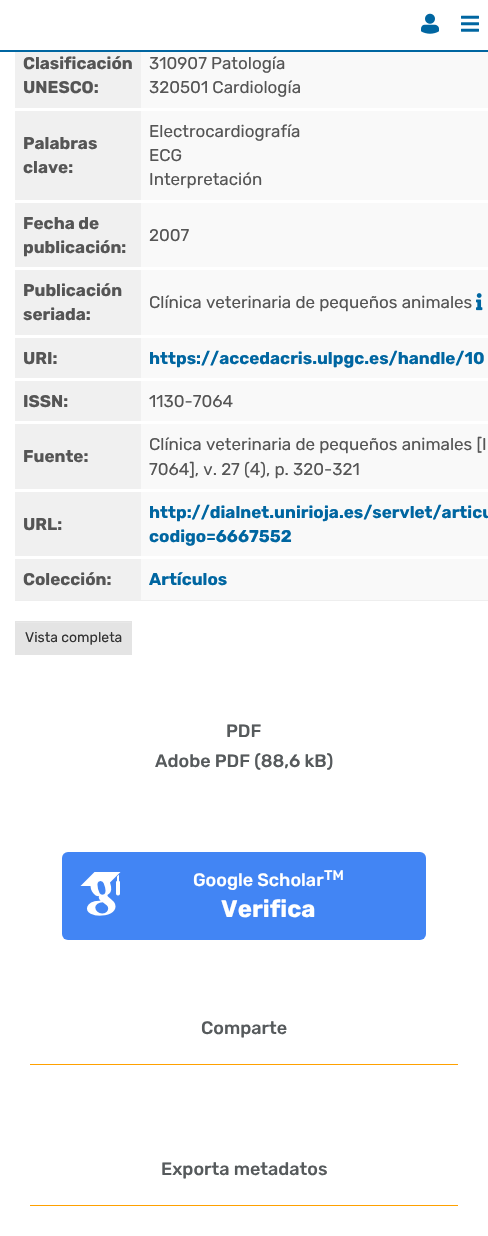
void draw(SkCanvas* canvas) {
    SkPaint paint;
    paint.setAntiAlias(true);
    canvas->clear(0xFFFFFFFF);
    paint.setColor(0xFF0066A1);
    canvas->drawRect(SkRect::MakeXYWH(0, 50, 488, 2), paint);
    canvas->drawImageRect(SkImages::DeferredFromEncodedData(SkData::MakeFromFileName("img1.png")), SkRect::MakeXYWH(421, 13, 18, 21), SkSamplingOptions());
    canvas->drawImageRect(SkImages::DeferredFromEncodedData(SkData::MakeFromFileName("img2.png")), SkRect::MakeXYWH(461, 15, 18, 17), SkSamplingOptions());
    paint.setColor(0xFFF0F0F0);
    canvas->drawRect(SkRect::MakeXYWH(15, 52, 126, 56), paint);
    SkFont font1(fontMgr->matchFamilyStyle("Rubik", SkFontStyle::Bold()), 17);
    font1.setSubpixel(true);
    paint.setColor(0xFF555555);
    canvas->drawString("Clasificación", 23, 69, font1, paint);
    canvas->drawString("UNESCO:", 23, 93, font1, paint);
    paint.setColor(0xFFF9F9F9);
    canvas->drawRect(SkRect::MakeXYWH(141, 52, 347, 56), paint);
    SkFont font2(fontMgr->matchFamilyStyle("Rubik", SkFontStyle::Normal()), 17);
    font2.setSubpixel(true);
    paint.setColor(0xFF555555);
    canvas->drawString("310907 Patología", 149, 69, font2, paint);
    canvas->drawString("320501 Cardiología", 149, 93, font2, paint);
    paint.setColor(0xFFF0F0F0);
    canvas->drawRect(SkRect::MakeXYWH(15, 111, 126, 89), paint);
    paint.setColor(0xFF555555);
    canvas->drawString("Palabras", 23, 149, font1, paint);
    canvas->drawString("clave:", 23, 173, font1, paint);
    paint.setColor(0xFFF9F9F9);
    canvas->drawRect(SkRect::MakeXYWH(141, 111, 347, 89), paint);
    paint.setColor(0xFF555555);
    canvas->drawString("Electrocardiografía", 149, 137, font2, paint);
    canvas->drawString("ECG", 149, 161, font2, paint);
    canvas->drawString("Interpretación", 149, 185, font2, paint);
    paint.setColor(0xFFF0F0F0);
    canvas->drawRect(SkRect::MakeXYWH(15, 203, 126, 64), paint);
    paint.setColor(0xFF555555);
    canvas->drawString("Fecha de", 23, 229, font1, paint);
    canvas->drawString("publicación:", 23, 253, font1, paint);
    paint.setColor(0xFFF9F9F9);
    canvas->drawRect(SkRect::MakeXYWH(141, 203, 347, 64), paint);
    paint.setColor(0xFF555555);
    canvas->drawString("2007", 149, 241, font2, paint);
    paint.setColor(0xFFF0F0F0);
    canvas->drawRect(SkRect::MakeXYWH(15, 270, 126, 65), paint);
    paint.setColor(0xFF555555);
    canvas->drawString("Publicación", 23, 296, font1, paint);
    canvas->drawString("seriada:", 23, 320, font1, paint);
    paint.setColor(0xFFF9F9F9);
    canvas->drawRect(SkRect::MakeXYWH(141, 270, 347, 65), paint);
    paint.setColor(0xFF555555);
    canvas->drawString("Clínica veterinaria de pequeños animales", 149, 308, font2, paint);
    canvas->drawImageRect(SkImages::DeferredFromEncodedData(SkData::MakeFromFileName("img3.png")), SkRect::MakeXYWH(476, 293, 7, 18), SkSamplingOptions());
    paint.setColor(0xFFF0F0F0);
    canvas->drawRect(SkRect::MakeXYWH(15, 338, 126, 40), paint);
    paint.setColor(0xFF555555);
    canvas->drawString("URI:", 23, 364, font1, paint);
    paint.setColor(0xFFF9F9F9);
    canvas->drawRect(SkRect::MakeXYWH(141, 338, 347, 40), paint);
    paint.setColor(0xFF0066A1);
    canvas->drawString("https://accedacris.ulpgc.es/handle/10", 149, 364, font1, paint);
    paint.setColor(0xFFF0F0F0);
    canvas->drawRect(SkRect::MakeXYWH(15, 381, 126, 40), paint);
    paint.setColor(0xFF555555);
    canvas->drawString("ISSN:", 23, 407, font1, paint);
    paint.setColor(0xFFF9F9F9);
    canvas->drawRect(SkRect::MakeXYWH(141, 381, 347, 40), paint);
    paint.setColor(0xFF555555);
    canvas->drawString("1130-7064", 149, 407, font2, paint);
    paint.setColor(0xFFF0F0F0);
    canvas->drawRect(SkRect::MakeXYWH(15, 424, 126, 65), paint);
    paint.setColor(0xFF555555);
    canvas->drawString("Fuente:", 23, 462, font1, paint);
    paint.setColor(0xFFF9F9F9);
    canvas->drawRect(SkRect::MakeXYWH(141, 424, 347, 65), paint);
    paint.setColor(0xFF555555);
    canvas->drawString("Clínica veterinaria de pequeños animales [I", 149, 450, font2, paint);
    canvas->drawString("7064], v. 27 (4), p. 320-321", 149, 475, font2, paint);
    paint.setColor(0xFFF0F0F0);
    canvas->drawRect(SkRect::MakeXYWH(15, 492, 126, 64), paint);
    paint.setColor(0xFF555555);
    canvas->drawString("URL:", 23, 530, font1, paint);
    paint.setColor(0xFFF9F9F9);
    canvas->drawRect(SkRect::MakeXYWH(141, 492, 347, 64), paint);
    paint.setColor(0xFF0066A1);
    canvas->drawString("http://dialnet.unirioja.es/servlet/articu", 149, 518, font1, paint);
    canvas->drawString("codigo=6667552", 149, 542, font1, paint);
    paint.setColor(0xFFEEEEEE);
    canvas->drawRect(SkRect::MakeXYWH(15, 600, 473, 1), paint);
    paint.setColor(0xFFF0F0F0);
    canvas->drawRect(SkRect::MakeXYWH(15, 559, 126, 41), paint);
    paint.setColor(0xFF555555);
    canvas->drawString("Colección:", 23, 585, font1, paint);
    paint.setColor(0xFFF9F9F9);
    canvas->drawRect(SkRect::MakeXYWH(141, 559, 347, 41), paint);
    paint.setColor(0xFF0066A1);
    canvas->drawString("Artículos", 149, 585, font1, paint);
    paint.setColor(0xFFE4E4E4);
    canvas->drawRect(SkRect::MakeXYWH(15, 621, 117, 34), paint);
    paint.setColor(0xFFE8E8E8);
    canvas->drawRect(SkRect::MakeXYWH(16, 622, 115, 1), paint);
    SkFont font3(fontMgr->matchFamilyStyle("Rubik", SkFontStyle::Normal()), 14);
    font3.setSubpixel(true);
    paint.setColor(0xFF333333);
    canvas->drawString("Vista completa", 25, 642, font3, paint);
    SkFont font4(fontMgr->matchFamilyStyle("Rubik", SkFontStyle(500, SkFontStyle::kNormal_Width, SkFontStyle::kUpright_Slant)), 18);
    font4.setSubpixel(true);
    paint.setColor(0xFF565A5C);
    canvas->drawString("PDF", 226, 737, font4, paint);
    canvas->drawString("Adobe PDF (88,6 kB)", 155, 767, font4, paint);
    paint.setColor(0xFF4285F4);
    canvas->drawRoundRect(SkRect::MakeXYWH(62, 852, 364, 88), 6, 6, paint);
    canvas->drawImageRect(SkImages::DeferredFromEncodedData(SkData::MakeFromFileName("img4.png")), SkRect::MakeXYWH(80, 872, 41, 44), SkSamplingOptions());
    paint.setColor(0xFFFFFFFF);
    canvas->drawString("Google Scholar", 193, 886, font4, paint);
    SkFont font5(fontMgr->matchFamilyStyle("Rubik", SkFontStyle(500, SkFontStyle::kNormal_Width, SkFontStyle::kUpright_Slant)), 14);
    font5.setSubpixel(true);
    canvas->drawString("TM", 324, 880, font5, paint);
    SkFont font6(fontMgr->matchFamilyStyle("Rubik", SkFontStyle::Bold()), 24);
    font6.setSubpixel(true);
    canvas->drawString("Verifica", 221, 917, font6, paint);
    paint.setColor(0xFF565A5C);
    canvas->drawString("Comparte", 201, 1034, font4, paint);
    paint.setColor(0xFFFFA100);
    canvas->drawRect(SkRect::MakeXYWH(30, 1064, 428, 1), paint);
    paint.setColor(0xFF565A5C);
    canvas->drawString("Exporta metadatos", 161, 1175, font4, paint);
    paint.setColor(0xFFFFA100);
    canvas->drawRect(SkRect::MakeXYWH(30, 1205, 428, 1), paint);
}
